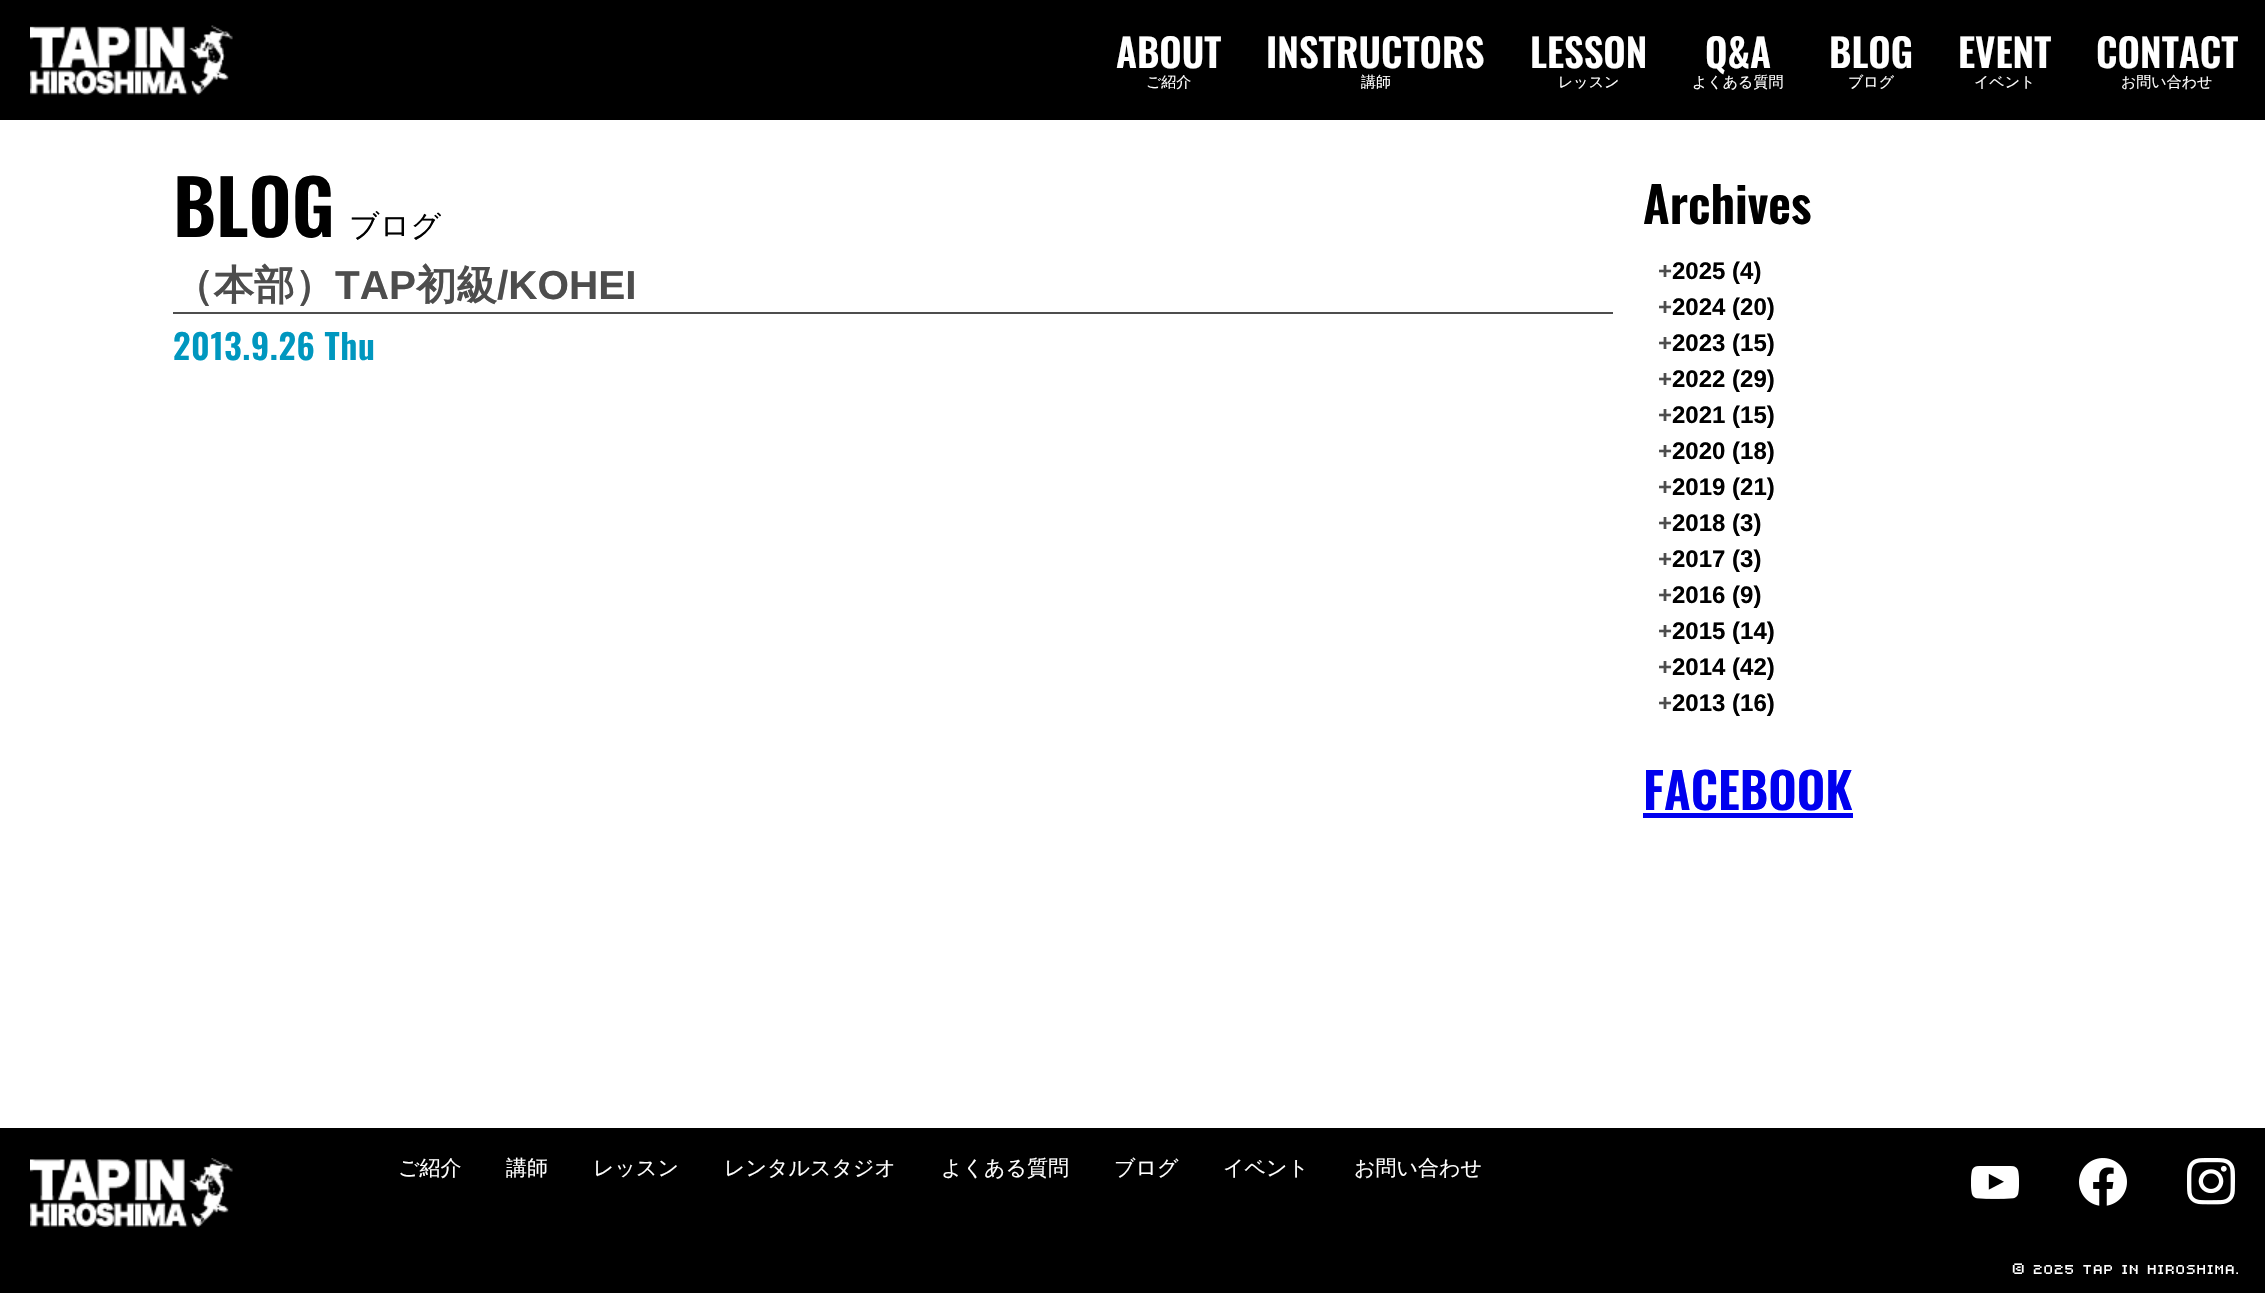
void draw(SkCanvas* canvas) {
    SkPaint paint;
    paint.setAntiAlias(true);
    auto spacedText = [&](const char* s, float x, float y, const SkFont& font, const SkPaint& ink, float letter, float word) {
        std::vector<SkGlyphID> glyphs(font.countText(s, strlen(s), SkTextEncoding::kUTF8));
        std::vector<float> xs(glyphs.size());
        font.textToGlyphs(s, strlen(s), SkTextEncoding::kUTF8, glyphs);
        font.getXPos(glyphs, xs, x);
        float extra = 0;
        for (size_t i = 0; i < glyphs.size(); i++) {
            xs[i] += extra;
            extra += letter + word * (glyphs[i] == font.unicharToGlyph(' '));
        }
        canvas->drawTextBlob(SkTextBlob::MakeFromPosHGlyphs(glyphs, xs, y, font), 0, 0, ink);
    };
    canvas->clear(0xFFFFFFFF);
    paint.setColor(0xFF000000);
    canvas->drawRect(SkRect::MakeXYWH(0, 0, 2265, 120), paint);
    canvas->drawImageRect(SkImages::DeferredFromEncodedData(SkData::MakeFromFileName("img1.png")), SkRect::MakeXYWH(30, 25, 203, 70), SkSamplingOptions());
    SkFont font1(fontMgr->matchFamilyStyle("Oswald", SkFontStyle(600, SkFontStyle::kNormal_Width, SkFontStyle::kUpright_Slant)), 39);
    font1.setSubpixel(true);
    paint.setColor(0xFFFFFFFF);
    canvas->drawString("ABOUT", 1116, 68, font1, paint);
    SkFont font2(fontMgr->matchFamilyStyle("WenQuanYi Zen Hei", SkFontStyle(500, SkFontStyle::kNormal_Width, SkFontStyle::kUpright_Slant)), 15);
    font2.setSubpixel(true);
    canvas->drawString("ご紹介", 1146, 87, font2, paint);
    canvas->drawString("INSTRUCTORS", 1266, 68, font1, paint);
    canvas->drawString("講師", 1361, 87, font2, paint);
    canvas->drawString("LESSON", 1530, 68, font1, paint);
    canvas->drawString("レッスン", 1558, 87, font2, paint);
    canvas->drawString("Q&A", 1705, 68, font1, paint);
    canvas->drawString("よくある質問", 1692, 87, font2, paint);
    canvas->drawString("BLOG", 1829, 68, font1, paint);
    canvas->drawString("ブログ", 1848, 87, font2, paint);
    canvas->drawString("EVENT", 1958, 68, font1, paint);
    canvas->drawString("イベント", 1974, 87, font2, paint);
    canvas->drawString("CONTACT", 2096, 68, font1, paint);
    canvas->drawString("お問い合わせ", 2121, 87, font2, paint);
    SkFont font3(fontMgr->matchFamilyStyle("Oswald", SkFontStyle(600, SkFontStyle::kNormal_Width, SkFontStyle::kUpright_Slant)), 75);
    font3.setSubpixel(true);
    paint.setColor(0xFF000000);
    canvas->drawString("BLOG", 173, 237, font3, paint);
    SkFont font4(fontMgr->matchFamilyStyle("WenQuanYi Zen Hei", SkFontStyle(500, SkFontStyle::kNormal_Width, SkFontStyle::kUpright_Slant)), 30);
    font4.setSubpixel(true);
    canvas->drawString("ブログ", 349, 236, font4, paint);
    paint.setColor(0xFF4D4D4D);
    canvas->drawRect(SkRect::MakeXYWH(173, 312, 1440, 2), paint);
    SkFont font5(fontMgr->matchFamilyStyle("WenQuanYi Zen Hei", SkFontStyle::Bold()), 40.5f);
    font5.setSubpixel(true);
    canvas->drawString("（本部）", 173, 299, font5, paint);
    SkFont font6(fontMgr->matchFamilyStyle("Liberation Sans", SkFontStyle::Bold()), 40.5f);
    font6.setSubpixel(true);
    canvas->drawString("TAP", 335, 299, font6, paint);
    canvas->drawString("初級", 416, 299, font5, paint);
    canvas->drawString("/KOHEI", 497, 299, font6, paint);
    SkFont font7(fontMgr->matchFamilyStyle("Oswald", SkFontStyle(600, SkFontStyle::kNormal_Width, SkFontStyle::kUpright_Slant)), 34.5f);
    font7.setSubpixel(true);
    paint.setColor(0xFF0097BF);
    spacedText("2013.9.26 Thu", 173, 360, font7, paint, 0.6f, 0);
    SkFont font8(fontMgr->matchFamilyStyle("Oswald", SkFontStyle(600, SkFontStyle::kNormal_Width, SkFontStyle::kUpright_Slant)), 49.5f);
    font8.setSubpixel(true);
    paint.setColor(0xFF000000);
    canvas->drawString("Archives", 1643, 224, font8, paint);
    SkFont font9(fontMgr->matchFamilyStyle("Liberation Sans", SkFontStyle::Bold()), 24);
    font9.setSubpixel(true);
    paint.setColor(0xFF4D4D4D);
    canvas->drawString("+", 1658, 279, font9, paint);
    paint.setColor(0xFF000000);
    canvas->drawString("2025 (4)", 1672, 279, font9, paint);
    paint.setColor(0xFF4D4D4D);
    canvas->drawString("+", 1658, 315, font9, paint);
    paint.setColor(0xFF000000);
    canvas->drawString("2024 (20)", 1672, 315, font9, paint);
    paint.setColor(0xFF4D4D4D);
    canvas->drawString("+", 1658, 351, font9, paint);
    paint.setColor(0xFF000000);
    canvas->drawString("2023 (15)", 1672, 351, font9, paint);
    paint.setColor(0xFF4D4D4D);
    canvas->drawString("+", 1658, 387, font9, paint);
    paint.setColor(0xFF000000);
    canvas->drawString("2022 (29)", 1672, 387, font9, paint);
    paint.setColor(0xFF4D4D4D);
    canvas->drawString("+", 1658, 423, font9, paint);
    paint.setColor(0xFF000000);
    canvas->drawString("2021 (15)", 1672, 423, font9, paint);
    paint.setColor(0xFF4D4D4D);
    canvas->drawString("+", 1658, 459, font9, paint);
    paint.setColor(0xFF000000);
    canvas->drawString("2020 (18)", 1672, 459, font9, paint);
    paint.setColor(0xFF4D4D4D);
    canvas->drawString("+", 1658, 495, font9, paint);
    paint.setColor(0xFF000000);
    canvas->drawString("2019 (21)", 1672, 495, font9, paint);
    paint.setColor(0xFF4D4D4D);
    canvas->drawString("+", 1658, 531, font9, paint);
    paint.setColor(0xFF000000);
    canvas->drawString("2018 (3)", 1672, 531, font9, paint);
    paint.setColor(0xFF4D4D4D);
    canvas->drawString("+", 1658, 567, font9, paint);
    paint.setColor(0xFF000000);
    canvas->drawString("2017 (3)", 1672, 567, font9, paint);
    paint.setColor(0xFF4D4D4D);
    canvas->drawString("+", 1658, 603, font9, paint);
    paint.setColor(0xFF000000);
    canvas->drawString("2016 (9)", 1672, 603, font9, paint);
    paint.setColor(0xFF4D4D4D);
    canvas->drawString("+", 1658, 639, font9, paint);
    paint.setColor(0xFF000000);
    canvas->drawString("2015 (14)", 1672, 639, font9, paint);
    paint.setColor(0xFF4D4D4D);
    canvas->drawString("+", 1658, 675, font9, paint);
    paint.setColor(0xFF000000);
    canvas->drawString("2014 (42)", 1672, 675, font9, paint);
    paint.setColor(0xFF4D4D4D);
    canvas->drawString("+", 1658, 711, font9, paint);
    paint.setColor(0xFF000000);
    canvas->drawString("2013 (16)", 1672, 711, font9, paint);
    paint.setColor(0xFF0000EE);
    canvas->drawString("FACEBOOK", 1643, 810, font8, paint);
    canvas->drawRect(SkRect::MakeXYWH(1643, 813, 210, 5), paint);
    paint.setColor(0xFF000000);
    canvas->drawRect(SkRect::MakeXYWH(0, 1128, 2265, 165), paint);
    canvas->drawImageRect(SkImages::DeferredFromEncodedData(SkData::MakeFromFileName("img2.png")), SkRect::MakeXYWH(30, 1158, 203, 69), SkSamplingOptions());
    SkFont font10(fontMgr->matchFamilyStyle("WenQuanYi Zen Hei", SkFontStyle(500, SkFontStyle::kNormal_Width, SkFontStyle::kUpright_Slant)), 21);
    font10.setSubpixel(true);
    paint.setColor(0xFFFFFFFF);
    canvas->drawString("ご紹介", 398, 1175, font10, paint);
    canvas->drawString("講師", 506, 1175, font10, paint);
    canvas->drawString("レッスン", 593, 1175, font10, paint);
    canvas->drawString("レンタルスタジオ", 724, 1175, font10, paint);
    canvas->drawString("よくある質問", 941, 1175, font10, paint);
    canvas->drawString("ブログ", 1114, 1175, font10, paint);
    canvas->drawString("イベント", 1223, 1175, font10, paint);
    canvas->drawString("お問い合わせ", 1354, 1175, font10, paint);
    canvas->drawImageRect(SkImages::DeferredFromEncodedData(SkData::MakeFromFileName("img3.png")), SkRect::MakeXYWH(1971, 1166, 48, 33), SkSamplingOptions());
    canvas->drawImageRect(SkImages::DeferredFromEncodedData(SkData::MakeFromFileName("img4.png")), SkRect::MakeXYWH(2079, 1158, 48, 48), SkSamplingOptions());
    canvas->drawImageRect(SkImages::DeferredFromEncodedData(SkData::MakeFromFileName("img5.png")), SkRect::MakeXYWH(2187, 1158, 48, 47), SkSamplingOptions());
    SkFont font11(fontMgr->matchFamilyStyle("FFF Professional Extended", SkFontStyle::Normal()), 12);
    font11.setSubpixel(true);
    canvas->drawString("© 2025 Tap In Hiroshima.", 2013, 1274, font11, paint);
}
